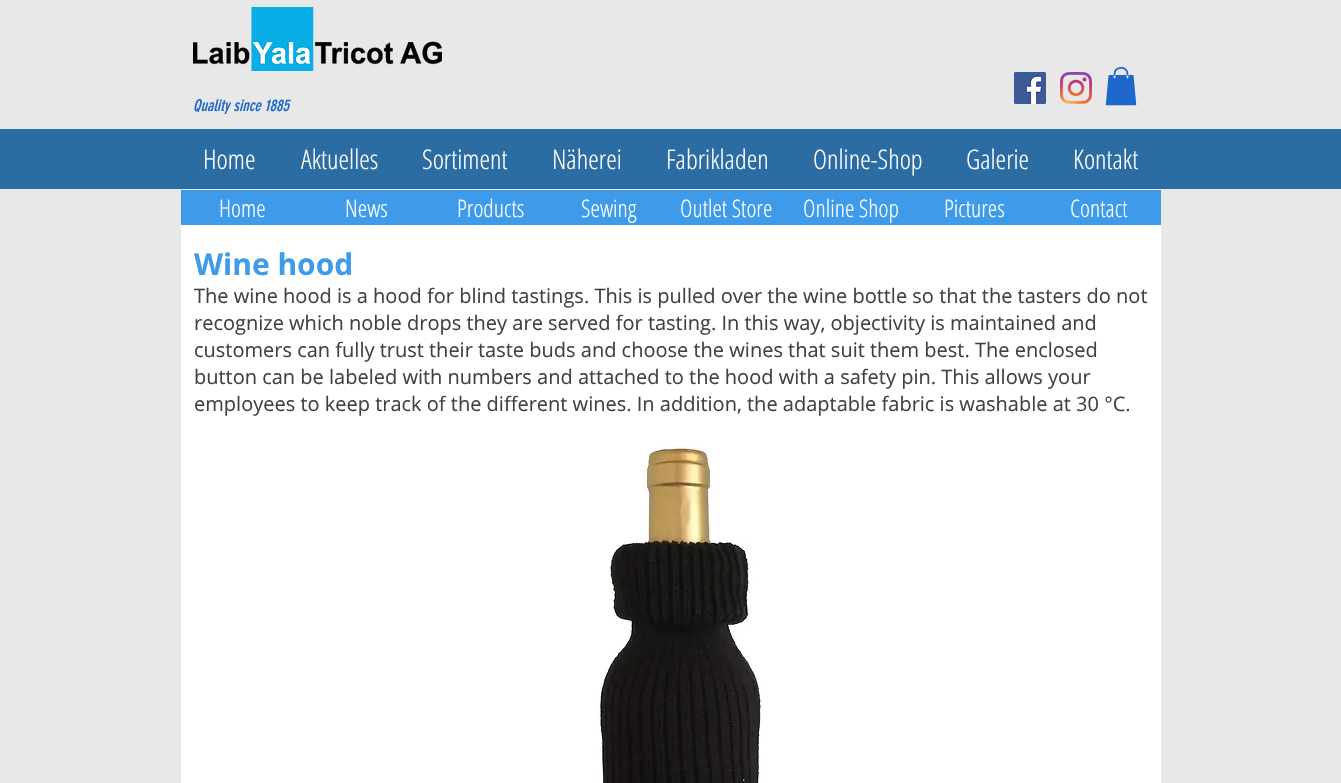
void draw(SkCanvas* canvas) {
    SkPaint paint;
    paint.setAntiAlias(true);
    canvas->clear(0xFFE8E8E8);
    canvas->drawImageRect(SkImages::DeferredFromEncodedData(SkData::MakeFromFileName("img1.png")), SkRect::MakeXYWH(193, 7, 249, 64), SkSamplingOptions());
    canvas->drawImageRect(SkImages::DeferredFromEncodedData(SkData::MakeFromFileName("img2.png")), SkRect::MakeXYWH(1014, 72, 32, 32), SkSamplingOptions());
    canvas->drawImageRect(SkImages::DeferredFromEncodedData(SkData::MakeFromFileName("img3.png")), SkRect::MakeXYWH(1060, 72, 32, 32), SkSamplingOptions());
    canvas->drawImageRect(SkImages::DeferredFromEncodedData(SkData::MakeFromFileName("img4.png")), SkRect::MakeXYWH(1105, 67, 32, 39), SkSamplingOptions());
    SkFont font1(fontMgr->matchFamilyStyle("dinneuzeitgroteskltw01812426", SkFontStyle::Italic()), 16);
    font1.setSubpixel(true);
    paint.setColor(0xFF1E68CB);
    canvas->drawString("Quality since 1885", 193, 111, font1, paint);
    paint.setColor(0xFF2B6CA3);
    canvas->drawRect(SkRect::MakeXYWH(0, 129, 1341, 60), paint);
    SkFont font2(fontMgr->matchFamilyStyle("Open Sans Condensed", SkFontStyle(300, SkFontStyle::kNormal_Width, SkFontStyle::kUpright_Slant)), 27);
    font2.setSubpixel(true);
    paint.setColor(0xFFFFFFFF);
    canvas->drawString("Home", 203, 169, font2, paint);
    canvas->drawString("Aktuelles", 301, 169, font2, paint);
    canvas->drawString("Sortiment", 422, 169, font2, paint);
    canvas->drawString("Näherei", 552, 169, font2, paint);
    canvas->drawString("Fabrikladen", 666, 169, font2, paint);
    canvas->drawString("Online-Shop", 813, 169, font2, paint);
    canvas->drawString("Galerie", 966, 169, font2, paint);
    canvas->drawString("Kontakt", 1073, 169, font2, paint);
    paint.setColor(0xFF3D9BE9);
    canvas->drawRect(SkRect::MakeXYWH(181, 190, 980, 35), paint);
    SkFont font3(fontMgr->matchFamilyStyle("Open Sans Condensed", SkFontStyle(300, SkFontStyle::kNormal_Width, SkFontStyle::kUpright_Slant)), 24);
    font3.setSubpixel(true);
    paint.setColor(0xFFFFFFFF);
    canvas->drawString("Home", 219, 217, font3, paint);
    canvas->drawString("News", 345, 217, font3, paint);
    canvas->drawString("Products", 457, 217, font3, paint);
    canvas->drawString("Sewing", 581, 217, font3, paint);
    canvas->drawString("Outlet Store", 680, 217, font3, paint);
    canvas->drawString("Online Shop", 803, 217, font3, paint);
    canvas->drawString("Pictures", 944, 217, font3, paint);
    canvas->drawString("Contact", 1070, 217, font3, paint);
    canvas->drawRect(SkRect::MakeXYWH(181, 225, 980, 558), paint);
    SkFont font4(fontMgr->matchFamilyStyle("Open Sans", SkFontStyle::Bold()), 30);
    font4.setSubpixel(true);
    paint.setColor(0xFF3D9BE9);
    canvas->drawString("Wine hood", 194, 275, font4, paint);
    SkFont font5(fontMgr->matchFamilyStyle("Open Sans", SkFontStyle::Normal()), 20);
    font5.setSubpixel(true);
    paint.setColor(0xFF414141);
    canvas->drawString("The wine hood is a hood for blind tastings. This is pulled over the wine bottle so that the tasters do not", 194, 303, font5, paint);
    canvas->drawString("recognize which noble drops they are served for tasting. In this way, objectivity is maintained and", 194, 330, font5, paint);
    canvas->drawString("customers can fully trust their taste buds and choose the wines that suit them best. The enclosed", 194, 357, font5, paint);
    canvas->drawString("button can be labeled with numbers and attached to the hood with a safety pin. This allows your", 194, 384, font5, paint);
    canvas->drawString("employees to keep track of the different wines. In addition, the adaptable fabric is washable at 30 °C.", 194, 411, font5, paint);
    canvas->drawImageRect(SkImages::DeferredFromEncodedData(SkData::MakeFromFileName("img5.png")), SkRect::MakeXYWH(597, 444, 164, 339), SkSamplingOptions());
}
